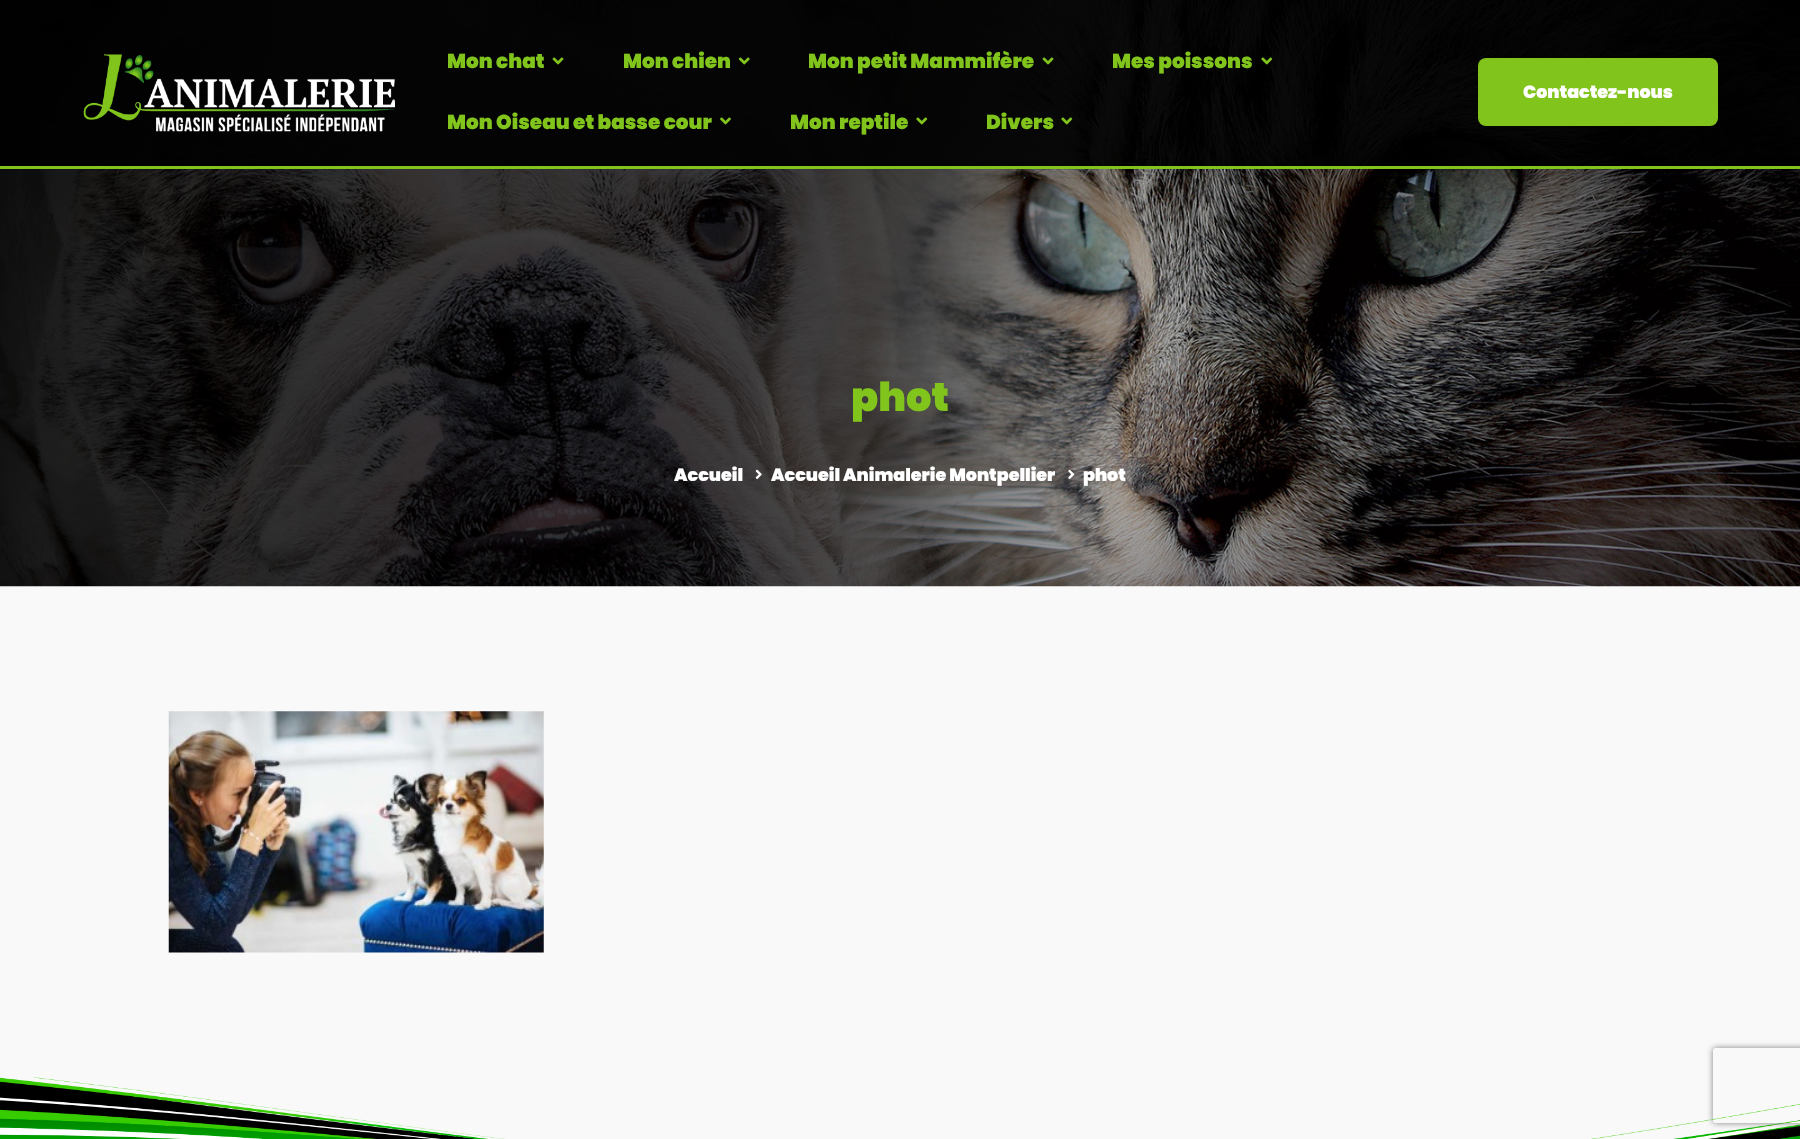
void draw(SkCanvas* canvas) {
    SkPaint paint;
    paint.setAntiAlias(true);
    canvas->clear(0xFFF9F9F9);
    canvas->drawImageRect(SkImages::DeferredFromEncodedData(SkData::MakeFromFileName("img9.png")), SkRect::MakeXYWH(0, 0, 1800, 587), SkSamplingOptions());
    paint.setColor(0xED000000);
    canvas->drawRect(SkRect::MakeXYWH(0, 0, 1800, 166), paint);
    paint.setColor(0xFF80C41C);
    canvas->drawRect(SkRect::MakeXYWH(0, 166, 1800, 3), paint);
    canvas->drawImageRect(SkImages::DeferredFromEncodedData(SkData::MakeFromFileName("img1.png")), SkRect::MakeXYWH(83, 54, 312, 78), SkSamplingOptions());
    SkFont font1(fontMgr->matchFamilyStyle("Poppins", SkFontStyle(900, SkFontStyle::kNormal_Width, SkFontStyle::kUpright_Slant)), 20);
    font1.setSubpixel(true);
    canvas->drawString("Mon chat", 447, 68, font1, paint);
    canvas->drawImageRect(SkImages::DeferredFromEncodedData(SkData::MakeFromFileName("img2.png")), SkRect::MakeXYWH(552, 57, 12, 8), SkSamplingOptions());
    canvas->drawString("Mon chien", 623, 68, font1, paint);
    canvas->drawImageRect(SkImages::DeferredFromEncodedData(SkData::MakeFromFileName("img3.png")), SkRect::MakeXYWH(738, 57, 12, 8), SkSamplingOptions());
    canvas->drawString("Mon petit Mammifère", 808, 68, font1, paint);
    canvas->drawImageRect(SkImages::DeferredFromEncodedData(SkData::MakeFromFileName("img4.png")), SkRect::MakeXYWH(1042, 57, 12, 8), SkSamplingOptions());
    canvas->drawString("Mes poissons", 1112, 68, font1, paint);
    canvas->drawImageRect(SkImages::DeferredFromEncodedData(SkData::MakeFromFileName("img5.png")), SkRect::MakeXYWH(1261, 57, 12, 8), SkSamplingOptions());
    canvas->drawString("Mon Oiseau et basse cour", 447, 129, font1, paint);
    canvas->drawImageRect(SkImages::DeferredFromEncodedData(SkData::MakeFromFileName("img6.png")), SkRect::MakeXYWH(720, 117, 11, 8), SkSamplingOptions());
    canvas->drawString("Mon reptile", 790, 129, font1, paint);
    canvas->drawImageRect(SkImages::DeferredFromEncodedData(SkData::MakeFromFileName("img7.png")), SkRect::MakeXYWH(916, 117, 12, 8), SkSamplingOptions());
    canvas->drawString("Divers", 986, 129, font1, paint);
    canvas->drawImageRect(SkImages::DeferredFromEncodedData(SkData::MakeFromFileName("img8.png")), SkRect::MakeXYWH(1061, 117, 12, 8), SkSamplingOptions());
    canvas->drawRoundRect(SkRect::MakeXYWH(1478, 58, 240, 68), 8, 8, paint);
    SkFont font2(fontMgr->matchFamilyStyle("Poppins", SkFontStyle(900, SkFontStyle::kNormal_Width, SkFontStyle::kUpright_Slant)), 17.5f);
    font2.setSubpixel(true);
    paint.setColor(0xFFFFFFFF);
    canvas->drawString("Contactez-nous", 1523, 98, font2, paint);
    SkFont font3(fontMgr->matchFamilyStyle("Poppins", SkFontStyle(900, SkFontStyle::kNormal_Width, SkFontStyle::kUpright_Slant)), 40);
    font3.setSubpixel(true);
    paint.setColor(0xFF80C41C);
    canvas->drawString("phot", 851, 411, font3, paint);
    paint.setColor(0xFFFFFFFF);
    canvas->drawString("Accueil", 674, 481, font2, paint);
    canvas->drawImageRect(SkImages::DeferredFromEncodedData(SkData::MakeFromFileName("img10.png")), SkRect::MakeXYWH(755, 469, 7, 10), SkSamplingOptions());
    canvas->drawString("Accueil Animalerie Montpellier", 771, 481, font2, paint);
    canvas->drawImageRect(SkImages::DeferredFromEncodedData(SkData::MakeFromFileName("img11.png")), SkRect::MakeXYWH(1068, 469, 7, 10), SkSamplingOptions());
    canvas->drawString("phot", 1083, 481, font2, paint);
    canvas->drawImageRect(SkImages::DeferredFromEncodedData(SkData::MakeFromFileName("img12.png")), SkRect::MakeXYWH(168, 711, 376, 242), SkSamplingOptions());
    canvas->drawImageRect(SkImages::DeferredFromEncodedData(SkData::MakeFromFileName("img13.png")), SkRect::MakeXYWH(0, 1077, 1800, 62), SkSamplingOptions());
    canvas->save();
    canvas->clipPath(SkPathBuilder(SkPathFillType::kEvenOdd).moveTo(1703, 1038).lineTo(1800, 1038).lineTo(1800, 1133).lineTo(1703, 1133).close().moveTo(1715.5f, 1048).lineTo(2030.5f, 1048).cubicTo(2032, 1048, 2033, 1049, 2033, 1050.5f).lineTo(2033, 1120.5f).cubicTo(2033, 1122, 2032, 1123, 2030.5f, 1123).lineTo(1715.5f, 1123).cubicTo(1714, 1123, 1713, 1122, 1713, 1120.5f).lineTo(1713, 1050.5f).cubicTo(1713, 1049, 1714, 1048, 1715.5f, 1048).close().detach(), true);
    paint.setColor(0xFF808080);
    paint.setMaskFilter(SkMaskFilter::MakeBlur(kNormal_SkBlurStyle, 3));
    canvas->drawRoundRect(SkRect::MakeXYWH(1713, 1048, 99, 75), 2.5f, 2.5f, paint);
    paint.setMaskFilter(nullptr);
    canvas->restore();
}
